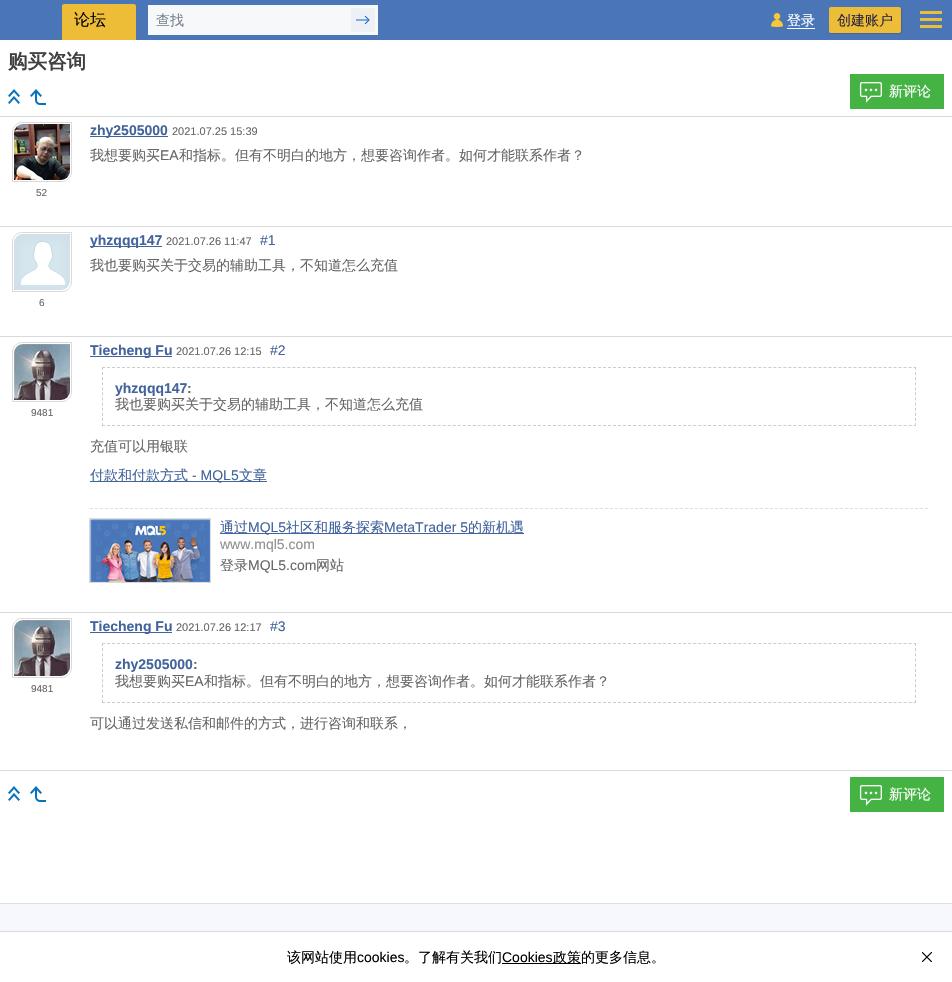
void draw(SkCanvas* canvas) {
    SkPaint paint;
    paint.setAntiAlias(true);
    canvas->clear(0xFFFFFFFF);
    paint.setColor(0xFF4A76B8);
    canvas->drawRect(SkRect::MakeXYWH(0, 0, 952, 40), paint);
    paint.setColor(0xFFEDBD37);
    canvas->drawPath(SkPathBuilder().moveTo(64, 4).lineTo(134, 4).cubicTo(135, 4, 136, 5, 136, 6).lineTo(136, 40).lineTo(62, 40).lineTo(62, 6).cubicTo(62, 5, 63, 4, 64, 4).close().detach(), paint);
    SkFont font1(fontMgr->matchFamilyStyle("WenQuanYi Zen Hei", SkFontStyle(500, SkFontStyle::kNormal_Width, SkFontStyle::kUpright_Slant)), 16);
    font1.setSubpixel(true);
    paint.setColor(0xFF000000);
    canvas->drawString("论坛", 74, 25, font1, paint);
    paint.setColor(0xFFF7F8FA);
    canvas->drawRect(SkRect::MakeXYWH(148, 5, 230, 30), paint);
    SkFont font2(fontMgr->matchFamilyStyle("WenQuanYi Zen Hei", SkFontStyle(500, SkFontStyle::kNormal_Width, SkFontStyle::kUpright_Slant)), 14);
    font2.setSubpixel(true);
    paint.setColor(0xFF79828F);
    canvas->drawString("查找", 156, 25, font2, paint);
    canvas->drawImageRect(SkImages::DeferredFromEncodedData(SkData::MakeFromFileName("img1.png")), SkRect::MakeXYWH(351, 8, 24, 24), SkSamplingOptions());
    paint.setColor(0xFFFFFFFF);
    canvas->drawRect(SkRect::MakeXYWH(787, 28, 28, 1), paint);
    canvas->drawImageRect(SkImages::DeferredFromEncodedData(SkData::MakeFromFileName("img2.png")), SkRect::MakeXYWH(771, 13, 12, 14), SkSamplingOptions());
    canvas->drawString("登录", 787, 25, font2, paint);
    paint.setColor(0xFF47658F);
    canvas->drawPath(SkPathBuilder().moveTo(830, 33).lineTo(832, 34).lineTo(900, 34).cubicTo(903, 34, 902, 30, 902, 28).lineTo(902, 21).cubicTo(902, 19, 903, 9, 901, 8).lineTo(901, 24).cubicTo(901, 36, 902, 33, 888, 33).close().detach(), paint);
    paint.setColor(0xFFEDBD37);
    canvas->drawRoundRect(SkRect::MakeXYWH(829, 7, 72, 26), 2, 2, paint);
    paint.setColor(0xFF2A2540);
    canvas->drawString("创建账户", 837, 25, font2, paint);
    paint.setColor(0xFFEDBD37);
    canvas->drawRect(SkRect::MakeXYWH(920, 11, 22, 3), paint);
    canvas->drawRect(SkRect::MakeXYWH(920, 18, 22, 3), paint);
    canvas->drawRect(SkRect::MakeXYWH(920, 25, 22, 3), paint);
    paint.setColor(0xFFDADADA);
    canvas->drawRect(SkRect::MakeXYWH(0, 116, 952, 1), paint);
    SkFont font3(fontMgr->matchFamilyStyle("WenQuanYi Zen Hei", SkFontStyle::Bold()), 19.5f);
    font3.setSubpixel(true);
    paint.setColor(0xFF404040);
    canvas->drawString("购买咨询", 8, 68, font3, paint);
    canvas->drawImageRect(SkImages::DeferredFromEncodedData(SkData::MakeFromFileName("img3.png")), SkRect::MakeXYWH(8, 89, 12, 15), SkSamplingOptions());
    canvas->drawImageRect(SkImages::DeferredFromEncodedData(SkData::MakeFromFileName("img4.png")), SkRect::MakeXYWH(30, 89, 16, 16), SkSamplingOptions());
    paint.setColor(0xFF44B344);
    canvas->drawRect(SkRect::MakeXYWH(850, 74, 94, 35), paint);
    canvas->drawImageRect(SkImages::DeferredFromEncodedData(SkData::MakeFromFileName("img5.png")), SkRect::MakeXYWH(859, 82, 23, 21), SkSamplingOptions());
    paint.setColor(0xFFFFFFFF);
    canvas->drawString("新评论", 889, 96, font2, paint);
    paint.setColor(0xFFDADADA);
    canvas->drawRect(SkRect::MakeXYWH(0, 226, 952, 1), paint);
    paint.setColor(0xFF42639C);
    canvas->drawRect(SkRect::MakeXYWH(90, 136, 78, 1), paint);
    SkFont font4(fontMgr->matchFamilyStyle("Liberation Sans", SkFontStyle::Bold()), 14);
    font4.setSubpixel(true);
    canvas->drawString("zhy2505000", 90, 135, font4, paint);
    SkFont font5(fontMgr->matchFamilyStyle("Liberation Sans", SkFontStyle::Normal()), 11);
    font5.setSubpixel(true);
    paint.setColor(0xFF666666);
    canvas->drawString("2021.07.25 15:39", 172, 135, font5, paint);
    canvas->drawString("我想要购买", 90, 160, font2, paint);
    SkFont font6(fontMgr->matchFamilyStyle("Liberation Sans", SkFontStyle::Normal()), 14);
    font6.setSubpixel(true);
    canvas->drawString("EA", 160, 160, font6, paint);
    canvas->drawString("和指标。但有不明白的地方，想要咨询作者。如何才能联系作者？", 179, 160, font2, paint);
    paint.setStyle(SkPaint::kStroke_Style);
    paint.setStrokeWidth(1);
    paint.setColor(0xFFDADADA);
    canvas->drawPath(SkPathBuilder().moveTo(22, 122.5f).lineTo(71.5f, 122.5f).lineTo(71.5f, 172).cubicTo(71.5f, 177, 67, 181.5f, 62, 181.5f).lineTo(12.5f, 181.5f).lineTo(12.5f, 132).cubicTo(12.5f, 127, 17, 122.5f, 22, 122.5f).close().detach(), paint);
    paint.setStyle(SkPaint::kFill_Style);
    paint.setColor(0xFFFFFFFF);
    canvas->drawPath(SkPathBuilder().moveTo(23, 123.5f).lineTo(70.5f, 123.5f).lineTo(70.5f, 171).cubicTo(70.5f, 176, 66, 180.5f, 61, 180.5f).lineTo(13.5f, 180.5f).lineTo(13.5f, 133).cubicTo(13.5f, 128, 18, 123.5f, 23, 123.5f).close().detach(), paint);
    paint.setStyle(SkPaint::kStroke_Style);
    canvas->drawPath(SkPathBuilder().moveTo(23, 123.5f).lineTo(70.5f, 123.5f).lineTo(70.5f, 171).cubicTo(70.5f, 176, 66, 180.5f, 61, 180.5f).lineTo(13.5f, 180.5f).lineTo(13.5f, 133).cubicTo(13.5f, 128, 18, 123.5f, 23, 123.5f).close().detach(), paint);
    canvas->drawImageRect(SkImages::DeferredFromEncodedData(SkData::MakeFromFileName("img6.png")), SkRect::MakeXYWH(14, 124, 56, 56), SkSamplingOptions());
    SkFont font7(fontMgr->matchFamilyStyle("Liberation Sans", SkFontStyle::Normal()), 10);
    font7.setSubpixel(true);
    paint.setStyle(SkPaint::kFill_Style);
    paint.setColor(0xFF666666);
    canvas->drawString("52", 36, 196, font7, paint);
    paint.setColor(0xFFDADADA);
    canvas->drawRect(SkRect::MakeXYWH(0, 336, 952, 1), paint);
    paint.setColor(0xFF42639C);
    canvas->drawRect(SkRect::MakeXYWH(90, 246, 72, 1), paint);
    canvas->drawString("yhzqqq147", 90, 245, font4, paint);
    paint.setColor(0xFF666666);
    canvas->drawString("2021.07.26 11:47", 166, 245, font5, paint);
    paint.setColor(0xFF42639C);
    canvas->drawString("#1", 260, 245, font6, paint);
    paint.setColor(0xFF666666);
    canvas->drawString("我也要购买关于交易的辅助工具，不知道怎么充值", 90, 270, font2, paint);
    paint.setStyle(SkPaint::kStroke_Style);
    paint.setColor(0xFFDADADA);
    canvas->drawPath(SkPathBuilder().moveTo(22, 232.5f).lineTo(71.5f, 232.5f).lineTo(71.5f, 282).cubicTo(71.5f, 287, 67, 291.5f, 62, 291.5f).lineTo(12.5f, 291.5f).lineTo(12.5f, 242).cubicTo(12.5f, 237, 17, 232.5f, 22, 232.5f).close().detach(), paint);
    paint.setStyle(SkPaint::kFill_Style);
    paint.setColor(0xFFFFFFFF);
    canvas->drawPath(SkPathBuilder().moveTo(23, 233.5f).lineTo(70.5f, 233.5f).lineTo(70.5f, 281).cubicTo(70.5f, 286, 66, 290.5f, 61, 290.5f).lineTo(13.5f, 290.5f).lineTo(13.5f, 243).cubicTo(13.5f, 238, 18, 233.5f, 23, 233.5f).close().detach(), paint);
    paint.setStyle(SkPaint::kStroke_Style);
    canvas->drawPath(SkPathBuilder().moveTo(23, 233.5f).lineTo(70.5f, 233.5f).lineTo(70.5f, 281).cubicTo(70.5f, 286, 66, 290.5f, 61, 290.5f).lineTo(13.5f, 290.5f).lineTo(13.5f, 243).cubicTo(13.5f, 238, 18, 233.5f, 23, 233.5f).close().detach(), paint);
    canvas->drawImageRect(SkImages::DeferredFromEncodedData(SkData::MakeFromFileName("img7.png")), SkRect::MakeXYWH(14, 234, 56, 56), SkSamplingOptions());
    paint.setStyle(SkPaint::kFill_Style);
    paint.setColor(0xFF666666);
    canvas->drawString("6", 39, 306, font7, paint);
    paint.setColor(0xFFDADADA);
    canvas->drawRect(SkRect::MakeXYWH(0, 612, 952, 1), paint);
    paint.setStyle(SkPaint::kStroke_Style);
    canvas->drawPath(SkPathBuilder().moveTo(22, 342.5f).lineTo(71.5f, 342.5f).lineTo(71.5f, 392).cubicTo(71.5f, 397, 67, 401.5f, 62, 401.5f).lineTo(12.5f, 401.5f).lineTo(12.5f, 352).cubicTo(12.5f, 347, 17, 342.5f, 22, 342.5f).close().detach(), paint);
    paint.setStyle(SkPaint::kFill_Style);
    paint.setColor(0xFFFFFFFF);
    canvas->drawPath(SkPathBuilder().moveTo(23, 343.5f).lineTo(70.5f, 343.5f).lineTo(70.5f, 391).cubicTo(70.5f, 396, 66, 400.5f, 61, 400.5f).lineTo(13.5f, 400.5f).lineTo(13.5f, 353).cubicTo(13.5f, 348, 18, 343.5f, 23, 343.5f).close().detach(), paint);
    paint.setStyle(SkPaint::kStroke_Style);
    canvas->drawPath(SkPathBuilder().moveTo(23, 343.5f).lineTo(70.5f, 343.5f).lineTo(70.5f, 391).cubicTo(70.5f, 396, 66, 400.5f, 61, 400.5f).lineTo(13.5f, 400.5f).lineTo(13.5f, 353).cubicTo(13.5f, 348, 18, 343.5f, 23, 343.5f).close().detach(), paint);
    canvas->drawImageRect(SkImages::DeferredFromEncodedData(SkData::MakeFromFileName("img8.png")), SkRect::MakeXYWH(14, 344, 56, 56), SkSamplingOptions());
    paint.setStyle(SkPaint::kFill_Style);
    paint.setColor(0xFF666666);
    canvas->drawString("9481", 31, 416, font7, paint);
    paint.setColor(0xFF42639C);
    canvas->drawRect(SkRect::MakeXYWH(90, 356, 82, 1), paint);
    canvas->drawString("Tiecheng Fu", 90, 355, font4, paint);
    paint.setColor(0xFF666666);
    canvas->drawString("2021.07.26 12:15", 176, 355, font5, paint);
    paint.setColor(0xFF42639C);
    canvas->drawString("#2", 270, 355, font6, paint);
    paint.setStyle(SkPaint::kStroke_Style);
    paint.setColor(0xFFCCCCCC);
    paint.setPathEffect(SkDashPathEffect::Make({{3, 2.01f}}, 0));
    canvas->drawPath(SkPathBuilder().moveTo(102, 367.5f).lineTo(916, 367.5f).detach(), paint);
    paint.setPathEffect(nullptr);
    paint.setPathEffect(SkDashPathEffect::Make({{3, 2.09f}}, 0));
    canvas->drawPath(SkPathBuilder().moveTo(915.5f, 367).lineTo(915.5f, 426).detach(), paint);
    paint.setPathEffect(nullptr);
    paint.setPathEffect(SkDashPathEffect::Make({{3, 2.01f}}, 0));
    canvas->drawPath(SkPathBuilder().moveTo(102, 425.5f).lineTo(916, 425.5f).detach(), paint);
    paint.setPathEffect(nullptr);
    paint.setPathEffect(SkDashPathEffect::Make({{3, 2.09f}}, 0));
    canvas->drawPath(SkPathBuilder().moveTo(102.5f, 367).lineTo(102.5f, 426).detach(), paint);
    paint.setPathEffect(nullptr);
    paint.setStyle(SkPaint::kFill_Style);
    paint.setColor(0xFF42639C);
    canvas->drawString("yhzqqq147", 115, 393, font4, paint);
    paint.setColor(0xFF666666);
    canvas->drawString(":", 187, 393, font4, paint);
    canvas->drawString("我也要购买关于交易的辅助工具，不知道怎么充值", 115, 409, font2, paint);
    canvas->drawString("充值可以用银联", 90, 451, font2, paint);
    paint.setColor(0xFF42639C);
    canvas->drawRect(SkRect::MakeXYWH(90, 481, 177, 1), paint);
    canvas->drawString("付款和付款方式", 90, 480, font2, paint);
    canvas->drawString("- MQL5", 192, 480, font6, paint);
    canvas->drawString("文章", 239, 480, font2, paint);
    paint.setStyle(SkPaint::kStroke_Style);
    paint.setColor(0xFFE0E0E0);
    paint.setPathEffect(SkDashPathEffect::Make({{3, 2}}, 0));
    canvas->drawPath(SkPathBuilder().moveTo(90, 508.5f).lineTo(928, 508.5f).detach(), paint);
    paint.setPathEffect(nullptr);
    canvas->drawImageRect(SkImages::DeferredFromEncodedData(SkData::MakeFromFileName("img9.png")), SkRect::MakeXYWH(90, 519, 120, 63), SkSamplingOptions());
    paint.setColor(0xFFDADADA);
    canvas->drawRect(SkRect::MakeXYWH(89.5f, 518.5f, 121, 64), paint);
    paint.setStyle(SkPaint::kFill_Style);
    paint.setColor(0xFF42639C);
    canvas->drawRect(SkRect::MakeXYWH(220, 533, 304, 1), paint);
    canvas->drawString("通过", 220, 532, font2, paint);
    canvas->drawString("MQL5", 248, 532, font6, paint);
    canvas->drawString("社区和服务探索", 286, 532, font2, paint);
    canvas->drawString("MetaTrader 5", 384, 532, font6, paint);
    canvas->drawString("的新机遇", 468, 532, font2, paint);
    paint.setColor(0xFF8F8F8F);
    canvas->drawString("www.mql5.com", 220, 549, font6, paint);
    paint.setColor(0xFF666666);
    canvas->drawString("登录", 220, 570, font2, paint);
    canvas->drawString("MQL5.com", 248, 570, font6, paint);
    canvas->drawString("网站", 316, 570, font2, paint);
    paint.setColor(0xFFDADADA);
    canvas->drawRect(SkRect::MakeXYWH(0, 770, 952, 1), paint);
    paint.setStyle(SkPaint::kStroke_Style);
    canvas->drawPath(SkPathBuilder().moveTo(22, 618.5f).lineTo(71.5f, 618.5f).lineTo(71.5f, 668).cubicTo(71.5f, 673, 67, 677.5f, 62, 677.5f).lineTo(12.5f, 677.5f).lineTo(12.5f, 628).cubicTo(12.5f, 623, 17, 618.5f, 22, 618.5f).close().detach(), paint);
    paint.setStyle(SkPaint::kFill_Style);
    paint.setColor(0xFFFFFFFF);
    canvas->drawPath(SkPathBuilder().moveTo(23, 619.5f).lineTo(70.5f, 619.5f).lineTo(70.5f, 667).cubicTo(70.5f, 672, 66, 676.5f, 61, 676.5f).lineTo(13.5f, 676.5f).lineTo(13.5f, 629).cubicTo(13.5f, 624, 18, 619.5f, 23, 619.5f).close().detach(), paint);
    paint.setStyle(SkPaint::kStroke_Style);
    canvas->drawPath(SkPathBuilder().moveTo(23, 619.5f).lineTo(70.5f, 619.5f).lineTo(70.5f, 667).cubicTo(70.5f, 672, 66, 676.5f, 61, 676.5f).lineTo(13.5f, 676.5f).lineTo(13.5f, 629).cubicTo(13.5f, 624, 18, 619.5f, 23, 619.5f).close().detach(), paint);
    canvas->drawImageRect(SkImages::DeferredFromEncodedData(SkData::MakeFromFileName("img8.png")), SkRect::MakeXYWH(14, 620, 56, 56), SkSamplingOptions());
    paint.setStyle(SkPaint::kFill_Style);
    paint.setColor(0xFF666666);
    canvas->drawString("9481", 31, 692, font7, paint);
    paint.setColor(0xFF42639C);
    canvas->drawRect(SkRect::MakeXYWH(90, 632, 82, 1), paint);
    canvas->drawString("Tiecheng Fu", 90, 631, font4, paint);
    paint.setColor(0xFF666666);
    canvas->drawString("2021.07.26 12:17", 176, 631, font5, paint);
    paint.setColor(0xFF42639C);
    canvas->drawString("#3", 270, 631, font6, paint);
    paint.setStyle(SkPaint::kStroke_Style);
    paint.setColor(0xFFCCCCCC);
    paint.setPathEffect(SkDashPathEffect::Make({{3, 2.01f}}, 0));
    canvas->drawPath(SkPathBuilder().moveTo(102, 643.5f).lineTo(916, 643.5f).detach(), paint);
    paint.setPathEffect(nullptr);
    paint.setPathEffect(SkDashPathEffect::Make({{3, 2.18f}}, 0));
    canvas->drawPath(SkPathBuilder().moveTo(915.5f, 643).lineTo(915.5f, 703).detach(), paint);
    paint.setPathEffect(nullptr);
    paint.setPathEffect(SkDashPathEffect::Make({{3, 2.01f}}, 0));
    canvas->drawPath(SkPathBuilder().moveTo(102, 702.5f).lineTo(916, 702.5f).detach(), paint);
    paint.setPathEffect(nullptr);
    paint.setPathEffect(SkDashPathEffect::Make({{3, 2.18f}}, 0));
    canvas->drawPath(SkPathBuilder().moveTo(102.5f, 643).lineTo(102.5f, 703).detach(), paint);
    paint.setPathEffect(nullptr);
    paint.setStyle(SkPaint::kFill_Style);
    paint.setColor(0xFF42639C);
    canvas->drawString("zhy2505000", 115, 669, font4, paint);
    paint.setColor(0xFF666666);
    canvas->drawString(":", 193, 669, font4, paint);
    canvas->drawString("我想要购买", 115, 686, font2, paint);
    canvas->drawString("EA", 185, 686, font6, paint);
    canvas->drawString("和指标。但有不明白的地方，想要咨询作者。如何才能联系作者？", 204, 686, font2, paint);
    canvas->drawString("可以通过发送私信和邮件的方式，进行咨询和联系，", 90, 728, font2, paint);
    canvas->drawImageRect(SkImages::DeferredFromEncodedData(SkData::MakeFromFileName("img3.png")), SkRect::MakeXYWH(8, 786, 12, 15), SkSamplingOptions());
    canvas->drawImageRect(SkImages::DeferredFromEncodedData(SkData::MakeFromFileName("img4.png")), SkRect::MakeXYWH(30, 786, 16, 16), SkSamplingOptions());
    paint.setColor(0xFF44B344);
    canvas->drawRect(SkRect::MakeXYWH(850, 777, 94, 35), paint);
    canvas->drawImageRect(SkImages::DeferredFromEncodedData(SkData::MakeFromFileName("img5.png")), SkRect::MakeXYWH(859, 785, 23, 21), SkSamplingOptions());
    paint.setColor(0xFFFFFFFF);
    canvas->drawString("新评论", 889, 799, font2, paint);
    paint.setColor(0xFFF6F8FD);
    canvas->drawRect(SkRect::MakeXYWH(0, 904, 952, 27), paint);
    paint.setColor(0xFFDDDFE3);
    canvas->drawRect(SkRect::MakeXYWH(0, 903, 952, 1), paint);
    paint.setColor(0xFFDADADA);
    canvas->drawRect(SkRect::MakeXYWH(0, 931, 952, 1), paint);
    paint.setColor(0xFF000000);
    canvas->drawString("该网站使用", 287, 962, font2, paint);
    canvas->drawString("cookies", 357, 962, font6, paint);
    canvas->drawString("。了解有关我们", 404, 962, font2, paint);
    canvas->drawString("Cookies", 502, 962, font6, paint);
    canvas->drawRect(SkRect::MakeXYWH(502, 963, 79, 1), paint);
    canvas->drawString("政策的更多信息。", 553, 962, font2, paint);
    canvas->drawImageRect(SkImages::DeferredFromEncodedData(SkData::MakeFromFileName("img10.png")), SkRect::MakeXYWH(922, 952, 10, 10), SkSamplingOptions());
}
